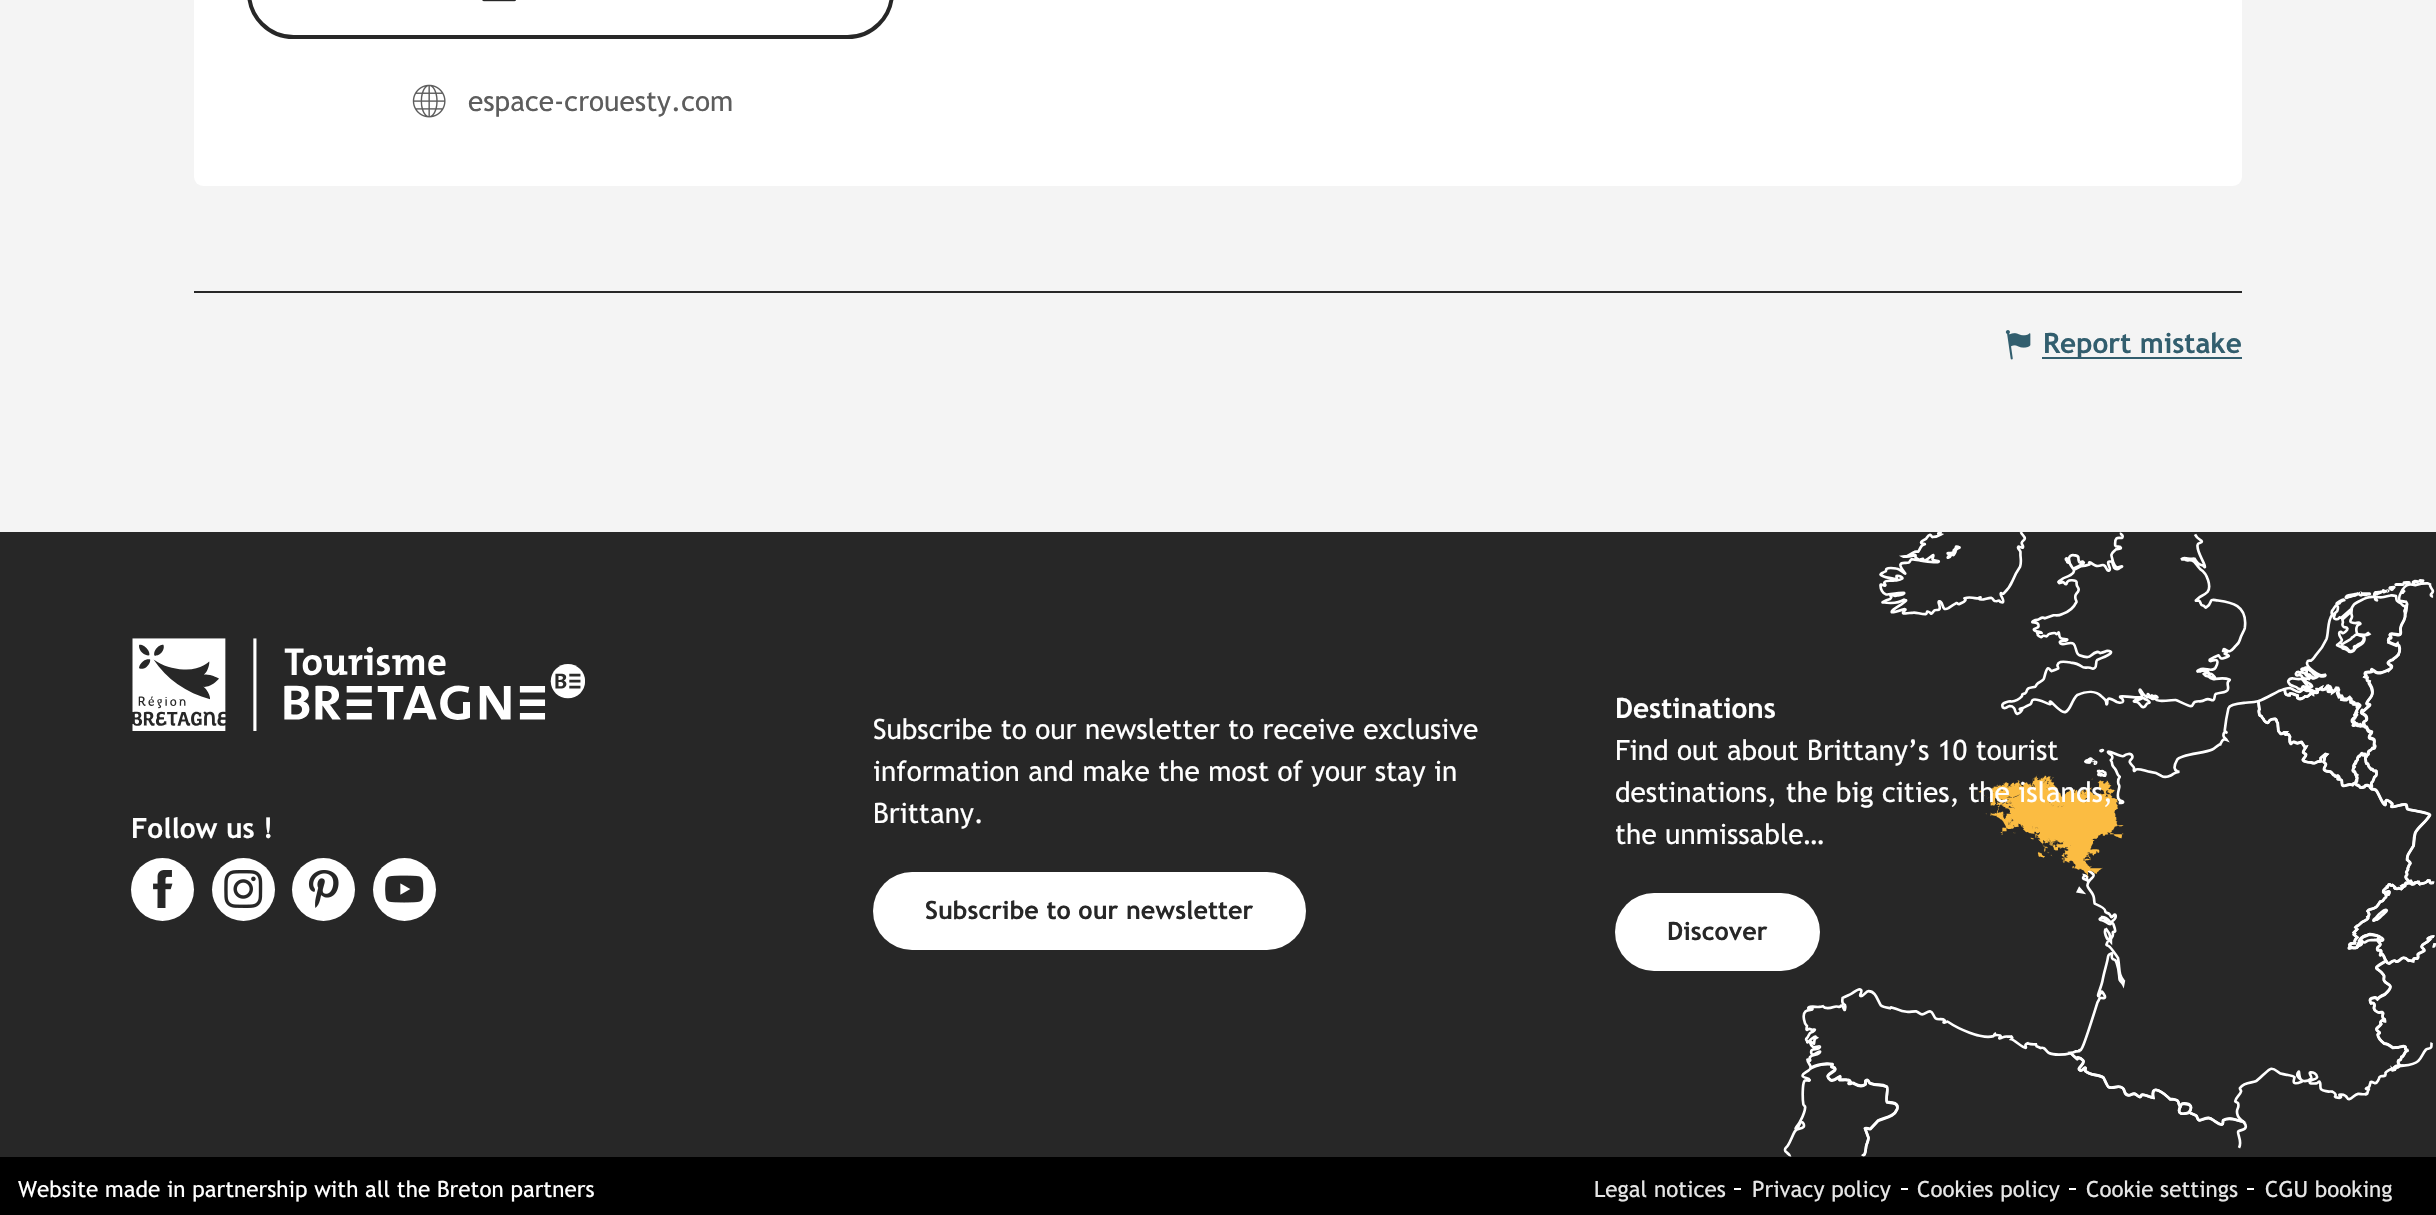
void draw(SkCanvas* canvas) {
    SkPaint paint;
    paint.setAntiAlias(true);
    canvas->clear(0xFFF4F4F4);
    paint.setColor(0xFFFFFFFF);
    canvas->drawRoundRect(SkRect::MakeXYWH(194, -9, 2048, 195), 9, 9, paint);
    paint.setStyle(SkPaint::kStroke_Style);
    paint.setStrokeWidth(4);
    paint.setColor(0xFF272727);
    canvas->drawRoundRect(SkRect::MakeXYWH(249, -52, 643, 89), 48, 48, paint);
    canvas->drawImageRect(SkImages::DeferredFromEncodedData(SkData::MakeFromFileName("img1.png")), SkRect::MakeXYWH(482, 0, 34, 2), SkSamplingOptions());
    canvas->drawImageRect(SkImages::DeferredFromEncodedData(SkData::MakeFromFileName("img2.png")), SkRect::MakeXYWH(412, 84, 34, 34), SkSamplingOptions());
    SkFont font1(fontMgr->matchFamilyStyle("Trebuchet MS", SkFontStyle::Normal()), 28);
    font1.setSubpixel(true);
    paint.setStyle(SkPaint::kFill_Style);
    paint.setColor(0xFF5D5D5D);
    canvas->drawString("espace-crouesty.com", 468, 111, font1, paint);
    paint.setColor(0xFF272727);
    canvas->drawRect(SkRect::MakeXYWH(194, 291, 2048, 2), paint);
    canvas->drawImageRect(SkImages::DeferredFromEncodedData(SkData::MakeFromFileName("img3.png")), SkRect::MakeXYWH(2005, 330, 26, 30), SkSamplingOptions());
    paint.setColor(0xFF325E6E);
    canvas->drawRect(SkRect::MakeXYWH(2042, 357, 200, 2), paint);
    SkFont font2(fontMgr->matchFamilyStyle("Trebuchet MS", SkFontStyle::Bold()), 28);
    font2.setSubpixel(true);
    canvas->drawString("Report mistake", 2043, 353, font2, paint);
    paint.setColor(0xFF272727);
    canvas->drawRect(SkRect::MakeXYWH(0, 532, 2436, 625), paint);
    canvas->drawImageRect(SkImages::DeferredFromEncodedData(SkData::MakeFromFileName("img4.png")), SkRect::MakeXYWH(1783, 532, 653, 625), SkSamplingOptions());
    canvas->drawImageRect(SkImages::DeferredFromEncodedData(SkData::MakeFromFileName("img5.png")), SkRect::MakeXYWH(132, 638, 453, 93), SkSamplingOptions());
    paint.setColor(0xFFFFFFFF);
    canvas->drawString("Follow us !", 131, 838, font2, paint);
    canvas->drawCircle(162.5f, 889.5f, 31.5f, paint);
    canvas->drawImageRect(SkImages::DeferredFromEncodedData(SkData::MakeFromFileName("img6.png")), SkRect::MakeXYWH(153, 870, 20, 38), SkSamplingOptions());
    canvas->drawCircle(243.5f, 889.5f, 31.5f, paint);
    canvas->drawImageRect(SkImages::DeferredFromEncodedData(SkData::MakeFromFileName("img7.png")), SkRect::MakeXYWH(224, 870, 39, 38), SkSamplingOptions());
    canvas->drawCircle(323.5f, 889.5f, 31.5f, paint);
    canvas->drawImageRect(SkImages::DeferredFromEncodedData(SkData::MakeFromFileName("img8.png")), SkRect::MakeXYWH(308, 870, 31, 38), SkSamplingOptions());
    canvas->drawCircle(404.5f, 889.5f, 31.5f, paint);
    canvas->drawImageRect(SkImages::DeferredFromEncodedData(SkData::MakeFromFileName("img9.png")), SkRect::MakeXYWH(385, 875, 39, 28), SkSamplingOptions());
    canvas->drawString("Subscribe to our newsletter to receive exclusive", 873, 739, font1, paint);
    canvas->drawString("information and make the most of your stay in", 873, 781, font1, paint);
    canvas->drawString("Brittany.", 873, 823, font1, paint);
    canvas->drawRoundRect(SkRect::MakeXYWH(873, 872, 433, 78), 39, 39, paint);
    SkFont font3(fontMgr->matchFamilyStyle("Trebuchet MS", SkFontStyle::Bold()), 25.25f);
    font3.setSubpixel(true);
    paint.setColor(0xFF272727);
    canvas->drawString("Subscribe to our newsletter", 925, 919, font3, paint);
    paint.setColor(0xFFFFFFFF);
    canvas->drawString("Destinations", 1615, 718, font2, paint);
    canvas->drawString("Find out about Brittany’s 10 tourist", 1615, 760, font1, paint);
    canvas->drawString("destinations, the big cities, the islands,", 1615, 802, font1, paint);
    canvas->drawString("the unmissable…", 1615, 844, font1, paint);
    canvas->drawRoundRect(SkRect::MakeXYWH(1615, 893, 205, 78), 39, 39, paint);
    paint.setColor(0xFF272727);
    canvas->drawString("Discover", 1667, 940, font3, paint);
    paint.setColor(0xFF000000);
    canvas->drawRect(SkRect::MakeXYWH(0, 1157, 2436, 58), paint);
    SkFont font4(fontMgr->matchFamilyStyle("Trebuchet MS", SkFontStyle::Normal()), 22.4f);
    font4.setSubpixel(true);
    paint.setColor(0xFFFFFFFF);
    canvas->drawString("Website made in partnership with all the Breton partners", 18, 1197, font4, paint);
    paint.setColor(0xFFE6E6E6);
    canvas->drawString("Legal notices", 1594, 1197, font4, paint);
    paint.setColor(0xFFFFFFFF);
    canvas->drawRect(SkRect::MakeXYWH(1734, 1188, 7, 2), paint);
    paint.setColor(0xFFE6E6E6);
    canvas->drawString("Privacy policy", 1752, 1197, font4, paint);
    paint.setColor(0xFFFFFFFF);
    canvas->drawRect(SkRect::MakeXYWH(1901, 1188, 7, 2), paint);
    paint.setColor(0xFFE6E6E6);
    canvas->drawString("Cookies policy", 1917, 1197, font4, paint);
    paint.setColor(0xFFFFFFFF);
    canvas->drawRect(SkRect::MakeXYWH(2069, 1188, 7, 2), paint);
    paint.setColor(0xFFE6E6E6);
    canvas->drawString("Cookie settings", 2086, 1197, font4, paint);
    paint.setColor(0xFFFFFFFF);
    canvas->drawRect(SkRect::MakeXYWH(2247, 1188, 7, 2), paint);
    paint.setColor(0xFFE6E6E6);
    canvas->drawString("CGU booking", 2265, 1197, font4, paint);
}
